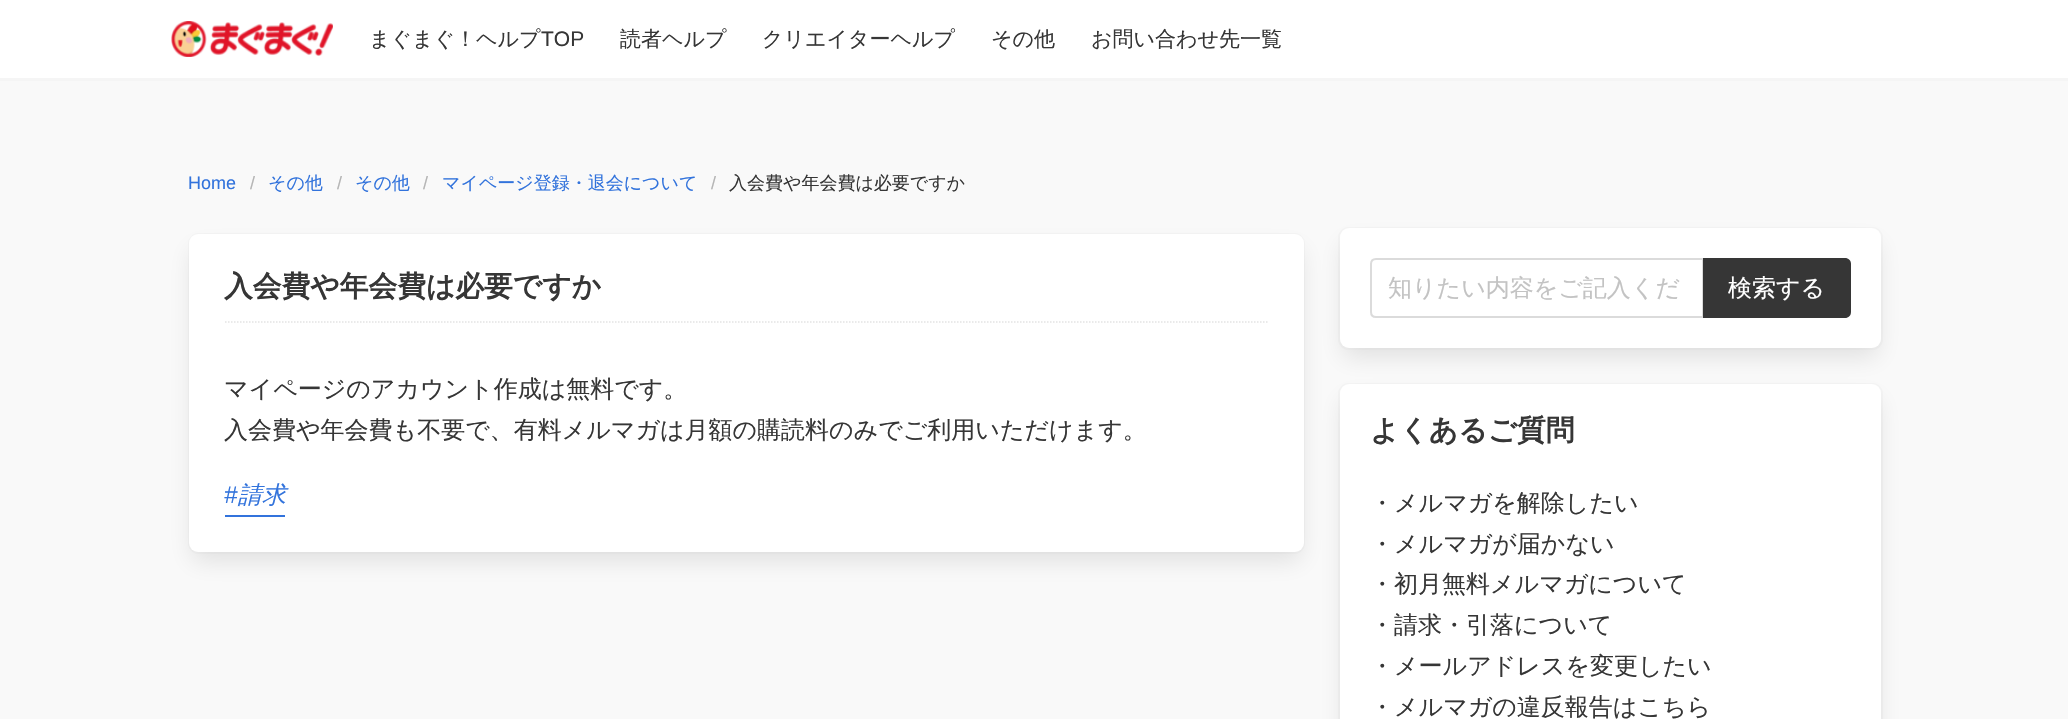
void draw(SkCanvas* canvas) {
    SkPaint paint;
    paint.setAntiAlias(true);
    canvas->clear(0xFFFFFFFF);
    paint.setColor(0xFFF5F5F5);
    canvas->drawPath(SkPathBuilder().moveTo(0, 78).lineTo(0, 81).lineTo(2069, 81).lineTo(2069, 3).lineTo(2068, 3).lineTo(2068, 78).close().detach(), paint);
    canvas->drawImageRect(SkImages::DeferredFromEncodedData(SkData::MakeFromFileName("img1.png")), SkRect::MakeXYWH(171, 21, 162, 36), SkSamplingOptions());
    SkFont font1(fontMgr->matchFamilyStyle("WenQuanYi Zen Hei", SkFontStyle(500, SkFontStyle::kNormal_Width, SkFontStyle::kUpright_Slant)), 21);
    font1.setSubpixel(true);
    paint.setColor(0xFF363636);
    canvas->drawString("まぐまぐ！ヘルプ", 369, 46, font1, paint);
    SkFont font2(fontMgr->matchFamilyStyle("Liberation Sans", SkFontStyle::Normal()), 21);
    font2.setSubpixel(true);
    canvas->drawString("TOP", 541, 46, font2, paint);
    canvas->drawString("読者ヘルプ", 620, 46, font1, paint);
    canvas->drawString("クリエイターヘルプ", 762, 46, font1, paint);
    canvas->drawString("その他", 991, 46, font1, paint);
    canvas->drawString("お問い合わせ先一覧", 1091, 46, font1, paint);
    paint.setColor(0xFFF9F9F9);
    canvas->drawRect(SkRect::MakeXYWH(0, 81, 2068, 638), paint);
    SkFont font3(fontMgr->matchFamilyStyle("Liberation Sans", SkFontStyle::Normal()), 18);
    font3.setSubpixel(true);
    paint.setColor(0xFF3273DC);
    canvas->drawString("Home", 188, 189, font3, paint);
    paint.setColor(0xFFB5B5B5);
    canvas->drawString("/", 250, 189, font3, paint);
    SkFont font4(fontMgr->matchFamilyStyle("WenQuanYi Zen Hei", SkFontStyle(500, SkFontStyle::kNormal_Width, SkFontStyle::kUpright_Slant)), 18);
    font4.setSubpixel(true);
    paint.setColor(0xFF3273DC);
    canvas->drawString("その他", 268, 189, font4, paint);
    paint.setColor(0xFFB5B5B5);
    canvas->drawString("/", 337, 189, font3, paint);
    paint.setColor(0xFF3273DC);
    canvas->drawString("その他", 355, 189, font4, paint);
    paint.setColor(0xFFB5B5B5);
    canvas->drawString("/", 423, 189, font3, paint);
    paint.setColor(0xFF3273DC);
    canvas->drawString("マイページ登録・退会について", 442, 189, font4, paint);
    paint.setColor(0xFFB5B5B5);
    canvas->drawString("/", 711, 189, font3, paint);
    paint.setColor(0xFF363636);
    canvas->drawString("入会費や年会費は必要ですか", 729, 189, font4, paint);
    paint.setStyle(SkPaint::kStroke_Style);
    paint.setStrokeWidth(2);
    paint.setColor(0xFFF4F4F4);
    canvas->drawRoundRect(SkRect::MakeXYWH(189, 234, 1115, 319), 10, 10, paint);
    paint.setStyle(SkPaint::kFill_Style);
    paint.setColor(0x1A0A0A0A);
    paint.setMaskFilter(SkMaskFilter::MakeBlur(kNormal_SkBlurStyle, 12));
    canvas->drawRoundRect(SkRect::MakeXYWH(192, 249, 1109, 312), 6, 6, paint);
    paint.setMaskFilter(nullptr);
    paint.setColor(0xFFFFFFFF);
    canvas->drawRoundRect(SkRect::MakeXYWH(189, 234, 1115, 318), 9, 9, paint);
    paint.setStyle(SkPaint::kStroke_Style);
    paint.setStrokeWidth(1.5f);
    paint.setColor(0xFFE4E4E4);
    paint.setPathEffect(SkDashPathEffect::Make({{1.5f, 1.5f}}, 0));
    canvas->drawPath(SkPathBuilder().moveTo(225, 322).lineTo(1267.5f, 322).detach(), paint);
    paint.setPathEffect(nullptr);
    SkFont font5(fontMgr->matchFamilyStyle("WenQuanYi Zen Hei", SkFontStyle::Bold()), 28.75f);
    font5.setSubpixel(true);
    paint.setStyle(SkPaint::kFill_Style);
    paint.setColor(0xFF363636);
    canvas->drawString("入会費や年会費は必要ですか", 224, 296, font5, paint);
    SkFont font6(fontMgr->matchFamilyStyle("WenQuanYi Zen Hei", SkFontStyle(500, SkFontStyle::kNormal_Width, SkFontStyle::kUpright_Slant)), 24);
    font6.setSubpixel(true);
    canvas->drawString("マイページのアカウント作成は無料です。", 224, 397, font6, paint);
    canvas->drawString("入会費や年会費も不要で、有料メルマガは月額の購読料のみでご利用いただけます。", 224, 438, font6, paint);
    paint.setColor(0xFF3273DC);
    canvas->drawRect(SkRect::MakeXYWH(225, 515, 60, 2), paint);
    SkFont font7(fontMgr->matchFamilyStyle("Liberation Sans", SkFontStyle::Italic()), 24);
    font7.setSubpixel(true);
    canvas->drawString("#", 224, 503, font7, paint);
    SkFont font8(fontMgr->matchFamilyStyle("WenQuanYi Zen Hei", SkFontStyle(500, SkFontStyle::kNormal_Width, SkFontStyle::kItalic_Slant)), 24);
    font8.setSubpixel(true);
    canvas->drawString("請求", 238, 503, font8, paint);
    paint.setStyle(SkPaint::kStroke_Style);
    paint.setStrokeWidth(2);
    paint.setColor(0xFFF4F4F4);
    canvas->drawRoundRect(SkRect::MakeXYWH(1339, 228, 543, 121), 10, 10, paint);
    paint.setStyle(SkPaint::kFill_Style);
    paint.setColor(0x1A0A0A0A);
    paint.setMaskFilter(SkMaskFilter::MakeBlur(kNormal_SkBlurStyle, 12));
    canvas->drawRoundRect(SkRect::MakeXYWH(1343, 243, 535, 114), 6, 6, paint);
    paint.setMaskFilter(nullptr);
    paint.setColor(0xFFFFFFFF);
    canvas->drawRoundRect(SkRect::MakeXYWH(1340, 228, 541, 120), 9, 9, paint);
    paint.setStyle(SkPaint::kStroke_Style);
    paint.setColor(0xFFDBDBDB);
    canvas->drawPath(SkPathBuilder().moveTo(1376, 259).lineTo(1703, 259).lineTo(1703, 317).lineTo(1376, 317).cubicTo(1373, 317, 1371, 315, 1371, 312).lineTo(1371, 264).cubicTo(1371, 261, 1373, 259, 1376, 259).close().detach(), paint);
    paint.setStyle(SkPaint::kFill_Style);
    paint.setColor(0xFFC3C3C3);
    canvas->drawString("知りたい内容をご記入くだ", 1388, 296, font6, paint);
    paint.setColor(0xFF363636);
    canvas->drawPath(SkPathBuilder().moveTo(1703, 258).lineTo(1845, 258).cubicTo(1848.5f, 258, 1851, 260.5f, 1851, 264).lineTo(1851, 312).cubicTo(1851, 315.5f, 1848.5f, 318, 1845, 318).lineTo(1703, 318).close().detach(), paint);
    paint.setColor(0xFFFFFFFF);
    canvas->drawString("検索する", 1728, 296, font6, paint);
    paint.setStyle(SkPaint::kStroke_Style);
    paint.setColor(0xFFF4F4F4);
    canvas->drawRoundRect(SkRect::MakeXYWH(1339, 384, 543, 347), 10, 10, paint);
    paint.setStyle(SkPaint::kFill_Style);
    paint.setColor(0x1A0A0A0A);
    paint.setMaskFilter(SkMaskFilter::MakeBlur(kNormal_SkBlurStyle, 12));
    canvas->drawRoundRect(SkRect::MakeXYWH(1343, 399, 535, 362), 6, 6, paint);
    paint.setMaskFilter(nullptr);
    paint.setColor(0xFFFFFFFF);
    canvas->drawRoundRect(SkRect::MakeXYWH(1340, 384, 541, 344), 9, 9, paint);
    paint.setColor(0xFF363636);
    canvas->drawString("よくあるご質問", 1370, 440, font5, paint);
    canvas->drawString("・メルマガを解除したい", 1370, 511, font6, paint);
    canvas->drawString("・メルマガが届かない", 1370, 552, font6, paint);
    canvas->drawString("・初月無料メルマガについて", 1370, 592, font6, paint);
    canvas->drawString("・請求・引落について", 1370, 633, font6, paint);
    canvas->drawString("・メールアドレスを変更したい", 1370, 674, font6, paint);
    canvas->drawString("・メルマガの違反報告はこちら", 1370, 715, font6, paint);
}
